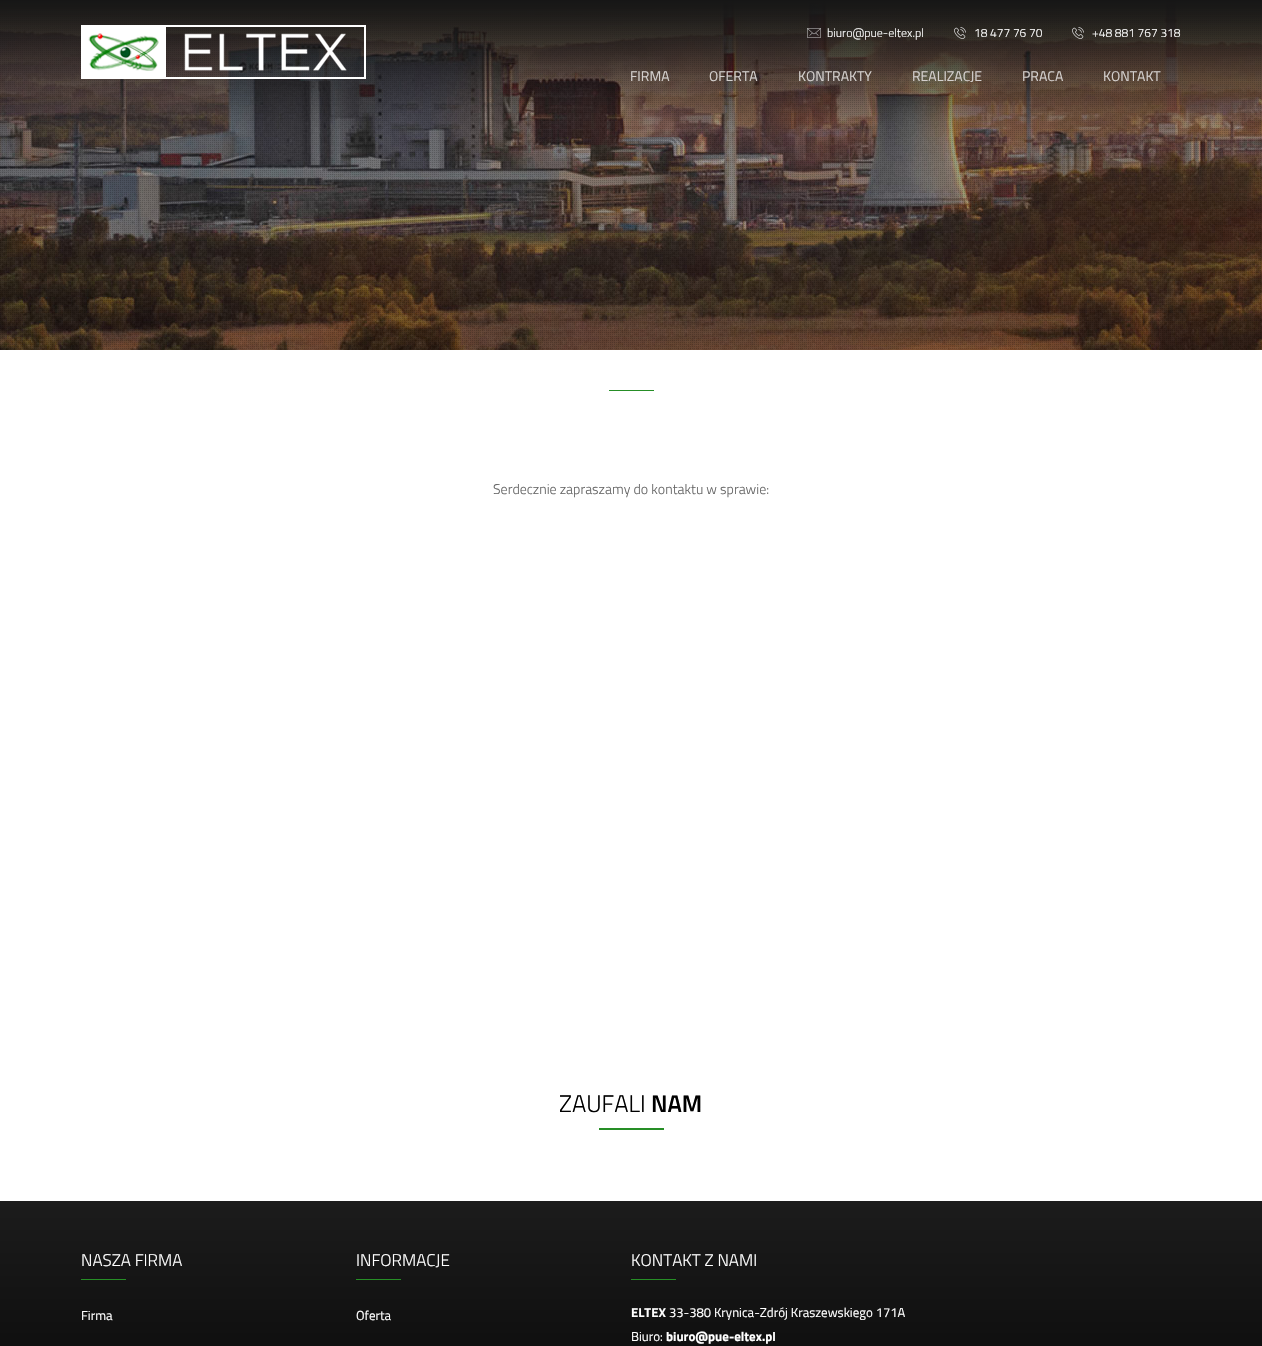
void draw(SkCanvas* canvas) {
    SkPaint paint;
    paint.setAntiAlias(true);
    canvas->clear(0xFFFFFFFF);
    canvas->drawImageRect(SkImages::DeferredFromEncodedData(SkData::MakeFromFileName("img1.png")), SkRect::MakeXYWH(0, 0, 1262, 350), SkSamplingOptions());
    canvas->drawImageRect(SkImages::DeferredFromEncodedData(SkData::MakeFromFileName("img2.png")), SkRect::MakeXYWH(81, 25, 285, 54), SkSamplingOptions());
    canvas->drawImageRect(SkImages::DeferredFromEncodedData(SkData::MakeFromFileName("img3.png")), SkRect::MakeXYWH(807, 28, 14, 10), SkSamplingOptions());
    SkFont font1(fontMgr->matchFamilyStyle("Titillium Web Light", SkFontStyle(300, SkFontStyle::kNormal_Width, SkFontStyle::kUpright_Slant)), 12);
    font1.setSubpixel(true);
    paint.setColor(0xFFFFFFFF);
    canvas->drawString("biuro@pue-eltex.pl", 827, 37, font1, paint);
    canvas->drawImageRect(SkImages::DeferredFromEncodedData(SkData::MakeFromFileName("img4.png")), SkRect::MakeXYWH(954, 27, 12, 12), SkSamplingOptions());
    canvas->drawString("18 477 76 70", 974, 37, font1, paint);
    canvas->drawImageRect(SkImages::DeferredFromEncodedData(SkData::MakeFromFileName("img5.png")), SkRect::MakeXYWH(1072, 27, 12, 12), SkSamplingOptions());
    canvas->drawString("+48 881 767 318", 1092, 37, font1, paint);
    SkFont font2(fontMgr->matchFamilyStyle("Titillium Web", SkFontStyle::Normal()), 14);
    font2.setSubpixel(true);
    paint.setColor(0xFFD4D0CE);
    canvas->drawString("FIRMA", 630, 81, font2, paint);
    canvas->drawString("OFERTA", 709, 81, font2, paint);
    canvas->drawString("KONTRAKTY", 798, 81, font2, paint);
    canvas->drawString("REALIZACJE", 912, 81, font2, paint);
    canvas->drawString("PRACA", 1022, 81, font2, paint);
    canvas->drawString("KONTAKT", 1103, 81, font2, paint);
    paint.setColor(0xFF268E26);
    canvas->drawRect(SkRect::MakeXYWH(609, 390, 45, 1), paint);
    SkFont font3(fontMgr->matchFamilyStyle("Titillium Web Light", SkFontStyle(300, SkFontStyle::kNormal_Width, SkFontStyle::kUpright_Slant)), 14);
    font3.setSubpixel(true);
    paint.setColor(0xFF666666);
    canvas->drawString("Serdecznie zapraszamy do kontaktu w sprawie:", 493, 494, font3, paint);
    SkFont font4(fontMgr->matchFamilyStyle("Titillium Web Light", SkFontStyle(300, SkFontStyle::kNormal_Width, SkFontStyle::kUpright_Slant)), 24);
    font4.setSubpixel(true);
    paint.setColor(0xFF000000);
    canvas->drawString("ZAUFALI", 559, 1112, font4, paint);
    SkFont font5(fontMgr->matchFamilyStyle("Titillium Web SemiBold", SkFontStyle(600, SkFontStyle::kNormal_Width, SkFontStyle::kUpright_Slant)), 24);
    font5.setSubpixel(true);
    canvas->drawString("NAM", 651, 1112, font5, paint);
    paint.setColor(0xFF268E26);
    canvas->drawRect(SkRect::MakeXYWH(599, 1128, 65, 2), paint);
    {
        const SkColor colors[] = {0xFF1C1C1C, 0xFF040404};
        const float stops[] = {0, 1};
        const SkPoint ends[] = {{631, 1201}, {631, 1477}};
        paint.setShader(SkGradientShader::MakeLinear(ends, colors, stops, 2, SkTileMode::kClamp));
        paint.setAlpha(255);
    }
    canvas->drawRect(SkRect::MakeXYWH(0, 1201, 1262, 145), paint);
    SkFont font6(fontMgr->matchFamilyStyle("Titillium Web Light", SkFontStyle(300, SkFontStyle::kNormal_Width, SkFontStyle::kUpright_Slant)), 17);
    font6.setSubpixel(true);
    paint.setShader(nullptr);
    paint.setColor(0xFFFFFFFF);
    canvas->drawString("NASZA FIRMA", 81, 1266, font6, paint);
    paint.setColor(0xFF268E26);
    canvas->drawRect(SkRect::MakeXYWH(81, 1279, 45, 1), paint);
    SkFont font7(fontMgr->matchFamilyStyle("Titillium Web", SkFontStyle::Normal()), 13);
    font7.setSubpixel(true);
    paint.setColor(0xFFFFFFFF);
    canvas->drawString("Firma", 81, 1320, font7, paint);
    canvas->drawString("INFORMACJE", 356, 1266, font6, paint);
    paint.setColor(0xFF268E26);
    canvas->drawRect(SkRect::MakeXYWH(356, 1279, 45, 1), paint);
    paint.setColor(0xFFFFFFFF);
    canvas->drawString("Oferta", 356, 1320, font7, paint);
    canvas->drawString("KONTAKT Z NAMI", 631, 1266, font6, paint);
    paint.setColor(0xFF268E26);
    canvas->drawRect(SkRect::MakeXYWH(631, 1279, 45, 1), paint);
    SkFont font8(fontMgr->matchFamilyStyle("Titillium Web", SkFontStyle::Bold()), 13);
    font8.setSubpixel(true);
    paint.setColor(0xFFFFFFFF);
    canvas->drawString("ELTEX", 631, 1317, font8, paint);
    canvas->drawString("33-380 Krynica-Zdrój Kraszewskiego 171A", 669, 1317, font7, paint);
    canvas->drawString("Biuro:", 631, 1341, font7, paint);
    canvas->drawString("biuro@pue-eltex.pl", 666, 1341, font8, paint);
}
